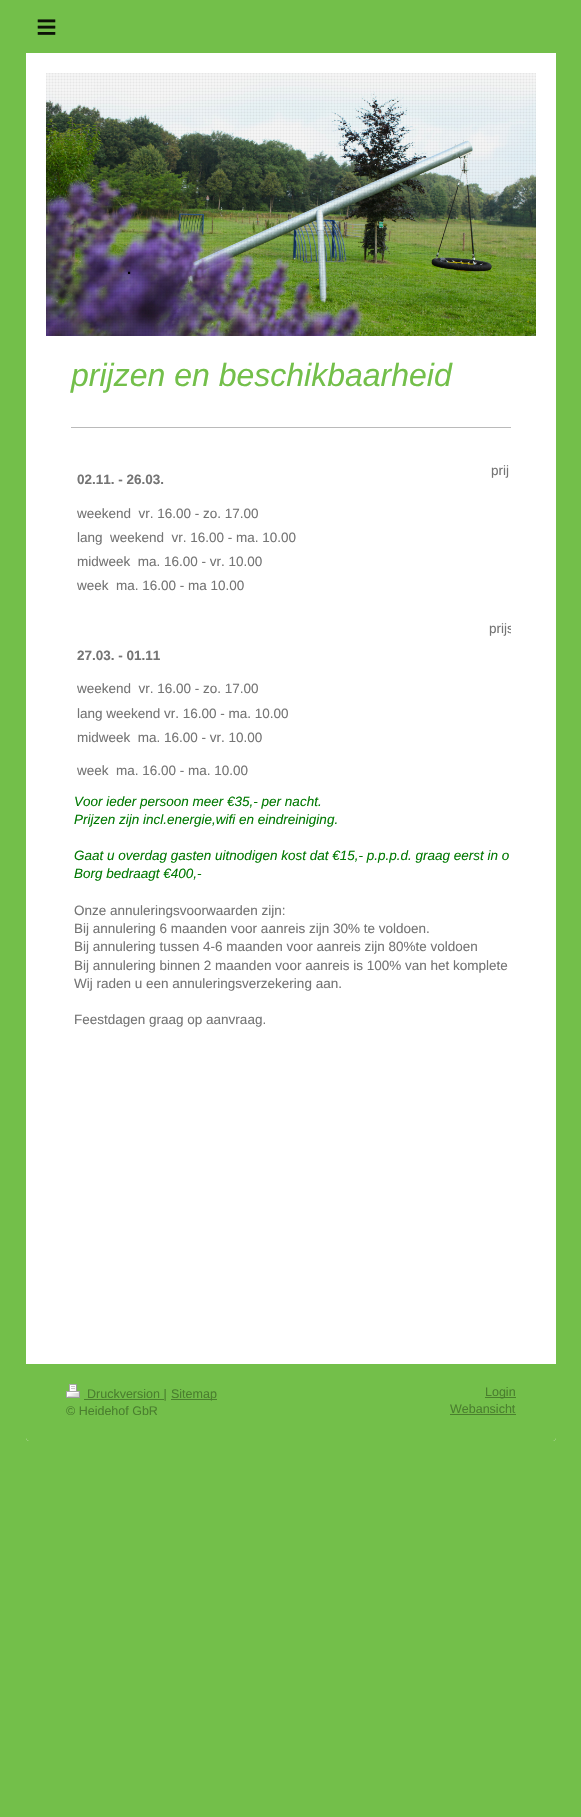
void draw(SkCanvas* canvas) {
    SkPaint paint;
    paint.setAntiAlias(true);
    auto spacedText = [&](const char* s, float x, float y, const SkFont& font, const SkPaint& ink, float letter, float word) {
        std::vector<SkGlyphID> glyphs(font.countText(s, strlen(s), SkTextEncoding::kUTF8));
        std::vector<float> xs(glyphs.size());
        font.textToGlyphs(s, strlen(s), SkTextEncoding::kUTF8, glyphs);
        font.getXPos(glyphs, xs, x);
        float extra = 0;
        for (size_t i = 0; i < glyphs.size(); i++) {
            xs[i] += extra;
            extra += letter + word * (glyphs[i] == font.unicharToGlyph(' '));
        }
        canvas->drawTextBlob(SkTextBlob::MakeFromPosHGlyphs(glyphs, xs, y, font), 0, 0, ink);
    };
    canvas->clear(0xFF73BF4A);
    paint.setColor(0xFFFFFFFF);
    canvas->drawPath(SkPathBuilder().moveTo(26, 0).lineTo(556, 0).lineTo(556, 1438).cubicTo(556, 1439.5f, 554.5f, 1441, 553, 1441).lineTo(29, 1441).cubicTo(27.5f, 1441, 26, 1439.5f, 26, 1438).close().detach(), paint);
    paint.setColor(0xFF73BF4A);
    canvas->drawRect(SkRect::MakeXYWH(26, 0, 530, 53), paint);
    SkFont font1(fontMgr->matchFamilyStyle("Liberation Sans", SkFontStyle::Normal()), 36);
    font1.setSubpixel(true);
    paint.setColor(0xFF0C1307);
    spacedText("≡", 36, 39, font1, paint, 10, 0);
    canvas->drawImageRect(SkImages::DeferredFromEncodedData(SkData::MakeFromFileName("img1.png")), SkRect::MakeXYWH(46, 73, 490, 263), SkSamplingOptions());
    canvas->drawImageRect(SkImages::DeferredFromEncodedData(SkData::MakeFromFileName("img2.png")), SkRect::MakeXYWH(46, 73, 490, 263), SkSamplingOptions());
    SkFont font2(fontMgr->matchFamilyStyle("Liberation Sans", SkFontStyle::Bold()), 15);
    font2.setSubpixel(true);
    paint.setColor(0xFF000000);
    canvas->drawString(".", 127, 274, font2, paint);
    SkFont font3(fontMgr->matchFamilyStyle("Liberation Sans", SkFontStyle::Italic()), 32);
    font3.setSubpixel(true);
    paint.setColor(0xFF73BF4A);
    canvas->drawString("prijzen en beschikbaarheid", 71, 386, font3, paint);
    paint.setColor(0xFFBABABA);
    canvas->drawRect(SkRect::MakeXYWH(71, 427, 440, 1), paint);
    SkFont font4(fontMgr->matchFamilyStyle("Liberation Sans", SkFontStyle::Normal()), 13.5f);
    font4.setSubpixel(true);
    paint.setColor(0xFF757575);
    canvas->drawString("prij", 491, 475, font4, paint);
    SkFont font5(fontMgr->matchFamilyStyle("Liberation Sans", SkFontStyle::Bold()), 13.5f);
    font5.setSubpixel(true);
    canvas->drawString("02.11. - 26.03.", 77, 484, font5, paint);
    canvas->drawString("weekend  vr. 16.00 - zo. 17.00", 77, 518, font4, paint);
    canvas->drawString("lang  weekend  vr. 16.00 - ma. 10.00", 77, 542, font4, paint);
    canvas->drawString("midweek  ma. 16.00 - vr. 10.00", 77, 566, font4, paint);
    canvas->drawString("week  ma. 16.00 - ma 10.00", 77, 590, font4, paint);
    canvas->save();
    canvas->clipRect(SkRect::MakeXYWH(71, 456, 440, 849));
    canvas->drawString("prijs", 489, 633, font4, paint);
    canvas->restore();
    canvas->drawString("27.03. - 01.11", 77, 660, font5, paint);
    canvas->drawString("weekend  vr. 16.00 - zo. 17.00", 77, 693, font4, paint);
    canvas->drawString("lang weekend vr. 16.00 - ma. 10.00", 77, 718, font4, paint);
    canvas->drawString("midweek  ma. 16.00 - vr. 10.00", 77, 742, font4, paint);
    canvas->drawString("week  ma. 16.00 - ma. 10.00", 77, 775, font4, paint);
    SkFont font6(fontMgr->matchFamilyStyle("Liberation Sans", SkFontStyle::Italic()), 13.5f);
    font6.setSubpixel(true);
    paint.setColor(0xFF037A04);
    canvas->drawString("Voor ieder persoon meer €35,- per nacht.", 74, 806, font6, paint);
    canvas->drawString("Prijzen zijn incl.energie,wifi en eindreiniging.", 74, 824, font6, paint);
    canvas->drawString("Gaat u overdag gasten uitnodigen kost dat €15,- p.p.p.d. graag eerst in o", 74, 860, font6, paint);
    canvas->drawString("Borg bedraagt €400,-", 74, 878, font6, paint);
    paint.setColor(0xFF757575);
    canvas->drawString("Onze annuleringsvoorwaarden zijn:", 74, 915, font4, paint);
    canvas->drawString("Bij annulering 6 maanden voor aanreis zijn 30% te voldoen.", 74, 933, font4, paint);
    canvas->drawString("Bij annulering tussen 4-6 maanden voor aanreis zijn 80%te voldoen", 74, 951, font4, paint);
    canvas->drawString("Bij annulering binnen 2 maanden voor aanreis is 100% van het komplete", 74, 970, font4, paint);
    canvas->drawString("Wij raden u een annuleringsverzekering aan.", 74, 988, font4, paint);
    canvas->drawString("Feestdagen graag op aanvraag.", 74, 1024, font4, paint);
    paint.setColor(0xFF73BF4A);
    canvas->drawPath(SkPathBuilder().moveTo(26, 1364).lineTo(556, 1364).lineTo(556, 1438).cubicTo(556, 1439.5f, 554.5f, 1441, 553, 1441).lineTo(29, 1441).cubicTo(27.5f, 1441, 26, 1439.5f, 26, 1438).close().detach(), paint);
    canvas->drawImageRect(SkImages::DeferredFromEncodedData(SkData::MakeFromFileName("img3.png")), SkRect::MakeXYWH(66, 1384, 14, 14), SkSamplingOptions());
    paint.setColor(0xFF4A7F2E);
    canvas->drawRect(SkRect::MakeXYWH(84, 1399, 80, 1), paint);
    SkFont font7(fontMgr->matchFamilyStyle("Liberation Sans", SkFontStyle::Normal()), 12.5f);
    font7.setSubpixel(true);
    canvas->drawString("Druckversion |", 87, 1398, font7, paint);
    canvas->drawRect(SkRect::MakeXYWH(171, 1399, 46, 1), paint);
    canvas->drawString("Sitemap", 171, 1398, font7, paint);
    canvas->save();
    canvas->clipRect(SkRect::MakeXYWH(66, 1384, 450, 37));
    canvas->drawString("© Heidehof GbR", 66, 1415, font7, paint);
    canvas->restore();
    canvas->drawRect(SkRect::MakeXYWH(485, 1397, 31, 1), paint);
    canvas->drawString("Login", 485, 1396, font7, paint);
    canvas->drawString("Webansicht", 450, 1413, font7, paint);
    canvas->drawRect(SkRect::MakeXYWH(450, 1414, 66, 1), paint);
}
